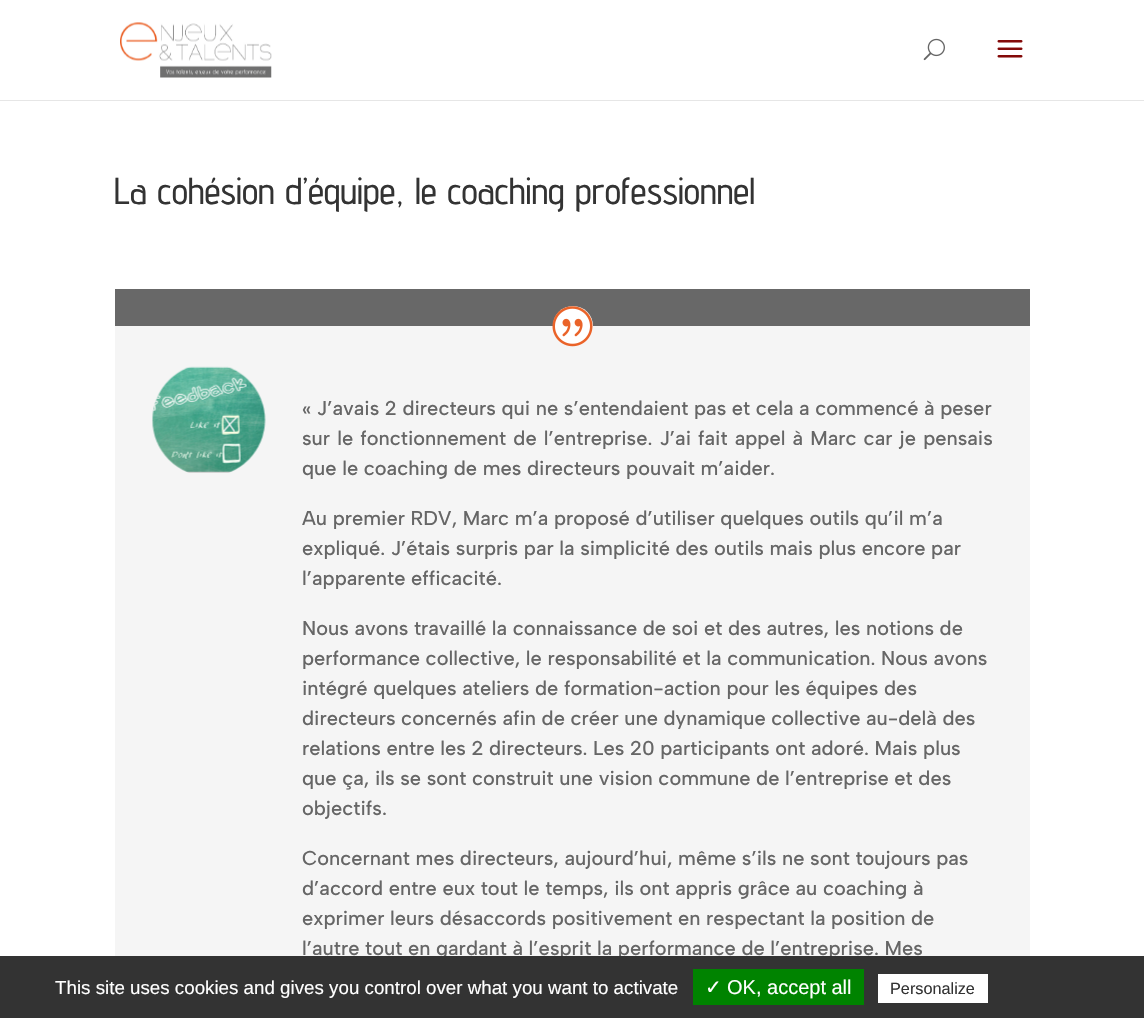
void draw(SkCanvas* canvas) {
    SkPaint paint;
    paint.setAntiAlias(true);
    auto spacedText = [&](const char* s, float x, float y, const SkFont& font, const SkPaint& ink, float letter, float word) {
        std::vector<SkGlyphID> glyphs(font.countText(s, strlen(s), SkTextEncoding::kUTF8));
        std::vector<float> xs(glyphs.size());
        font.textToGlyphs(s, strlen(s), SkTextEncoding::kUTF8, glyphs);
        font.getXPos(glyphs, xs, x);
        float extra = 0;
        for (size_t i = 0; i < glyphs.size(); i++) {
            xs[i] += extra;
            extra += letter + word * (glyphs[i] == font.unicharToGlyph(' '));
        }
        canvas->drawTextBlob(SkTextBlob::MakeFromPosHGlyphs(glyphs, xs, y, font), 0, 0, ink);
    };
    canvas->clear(0xFFFFFFFF);
    paint.setColor(0xFFE6E6E6);
    canvas->drawRect(SkRect::MakeXYWH(0, 100, 1144, 1), paint);
    canvas->drawImageRect(SkImages::DeferredFromEncodedData(SkData::MakeFromFileName("img1.png")), SkRect::MakeXYWH(120, 22, 152, 56), SkSamplingOptions());
    canvas->drawImageRect(SkImages::DeferredFromEncodedData(SkData::MakeFromFileName("img2.png")), SkRect::MakeXYWH(923, 38, 22, 23), SkSamplingOptions());
    canvas->drawImageRect(SkImages::DeferredFromEncodedData(SkData::MakeFromFileName("img3.png")), SkRect::MakeXYWH(997, 40, 26, 18), SkSamplingOptions());
    SkFont font1(fontMgr->matchFamilyStyle("Advent Pro", SkFontStyle(500, SkFontStyle::kNormal_Width, SkFontStyle::kUpright_Slant)), 37.5f);
    font1.setSubpixel(true);
    paint.setColor(0xFF333333);
    canvas->drawString("La cohésion d’équipe, le coaching professionnel", 114, 204, font1, paint);
    paint.setColor(0xFF686868);
    canvas->drawRect(SkRect::MakeXYWH(115, 289, 915, 37), paint);
    paint.setColor(0xFFF5F5F5);
    canvas->drawRect(SkRect::MakeXYWH(115, 326, 915, 630), paint);
    paint.setColor(0xFFFFFFFF);
    canvas->drawCircle(573, 326, 20, paint);
    canvas->drawImageRect(SkImages::DeferredFromEncodedData(SkData::MakeFromFileName("img4.png")), SkRect::MakeXYWH(552, 306, 41, 41), SkSamplingOptions());
    canvas->drawImageRect(SkImages::DeferredFromEncodedData(SkData::MakeFromFileName("img5.png")), SkRect::MakeXYWH(152, 366, 114, 107), SkSamplingOptions());
    SkFont font2(fontMgr->matchFamilyStyle("Albert Sans", SkFontStyle(500, SkFontStyle::kNormal_Width, SkFontStyle::kUpright_Slant)), 20);
    font2.setSubpixel(true);
    paint.setColor(0xFF666666);
    canvas->drawString("« J’avais 2 directeurs qui ne s’entendaient pas et cela a commencé à peser", 302, 415, font2, paint);
    spacedText("sur le fonctionnement de l’entreprise. J’ai fait appel à Marc car je pensais", 302, 445, font2, paint, 0, 1.5f);
    canvas->drawString("que le coaching de mes directeurs pouvait m’aider.", 302, 475, font2, paint);
    canvas->drawString("Au premier RDV, Marc m’a proposé d’utiliser quelques outils qu’il m’a", 302, 525, font2, paint);
    canvas->drawString("expliqué. J’étais surpris par la simplicité des outils mais plus encore par", 302, 555, font2, paint);
    canvas->drawString("l’apparente efficacité.", 302, 585, font2, paint);
    canvas->drawString("Nous avons travaillé la connaissance de soi et des autres, les notions de", 302, 635, font2, paint);
    canvas->drawString("performance collective, le responsabilité et la communication. Nous avons", 302, 665, font2, paint);
    canvas->drawString("intégré quelques ateliers de formation-action pour les équipes des", 302, 695, font2, paint);
    canvas->drawString("directeurs concernés afin de créer une dynamique collective au-delà des", 302, 725, font2, paint);
    canvas->drawString("relations entre les 2 directeurs. Les 20 participants ont adoré. Mais plus", 302, 755, font2, paint);
    canvas->drawString("que ça, ils se sont construit une vision commune de l’entreprise et des", 302, 785, font2, paint);
    canvas->drawString("objectifs.", 302, 815, font2, paint);
    canvas->drawString("Concernant mes directeurs, aujourd’hui, même s’ils ne sont toujours pas", 302, 865, font2, paint);
    canvas->drawString("d’accord entre eux tout le temps, ils ont appris grâce au coaching à", 302, 895, font2, paint);
    canvas->drawString("exprimer leurs désaccords positivement en respectant la position de", 302, 925, font2, paint);
    canvas->drawString("l’autre tout en gardant à l’esprit la performance de l’entreprise. Mes", 302, 955, font2, paint);
    paint.setColor(0xFF333333);
    canvas->drawRect(SkRect::MakeXYWH(0, 956, 1144, 62), paint);
    SkFont font3(fontMgr->matchFamilyStyle("Liberation Sans", SkFontStyle::Normal()), 18.75f);
    font3.setSubpixel(true);
    paint.setColor(0xFFFFFFFF);
    canvas->drawString("This site uses cookies and gives you control over what you want to activate", 55, 994, font3, paint);
    paint.setColor(0xFF008300);
    canvas->drawRect(SkRect::MakeXYWH(693, 969, 171, 36), paint);
    SkFont font4(fontMgr->matchFamilyStyle("DejaVu Sans", SkFontStyle::Normal()), 20);
    font4.setSubpixel(true);
    paint.setColor(0xFFFFFFFF);
    canvas->drawString("✓", 705, 994, font4, paint);
    SkFont font5(fontMgr->matchFamilyStyle("Liberation Sans", SkFontStyle::Normal()), 20);
    font5.setSubpixel(true);
    canvas->drawString("OK, accept all", 727, 994, font5, paint);
    canvas->drawRect(SkRect::MakeXYWH(878, 974, 110, 29), paint);
    SkFont font6(fontMgr->matchFamilyStyle("Liberation Sans", SkFontStyle::Normal()), 16.25f);
    font6.setSubpixel(true);
    paint.setColor(0xFF333333);
    canvas->drawString("Personalize", 890, 994, font6, paint);
}
